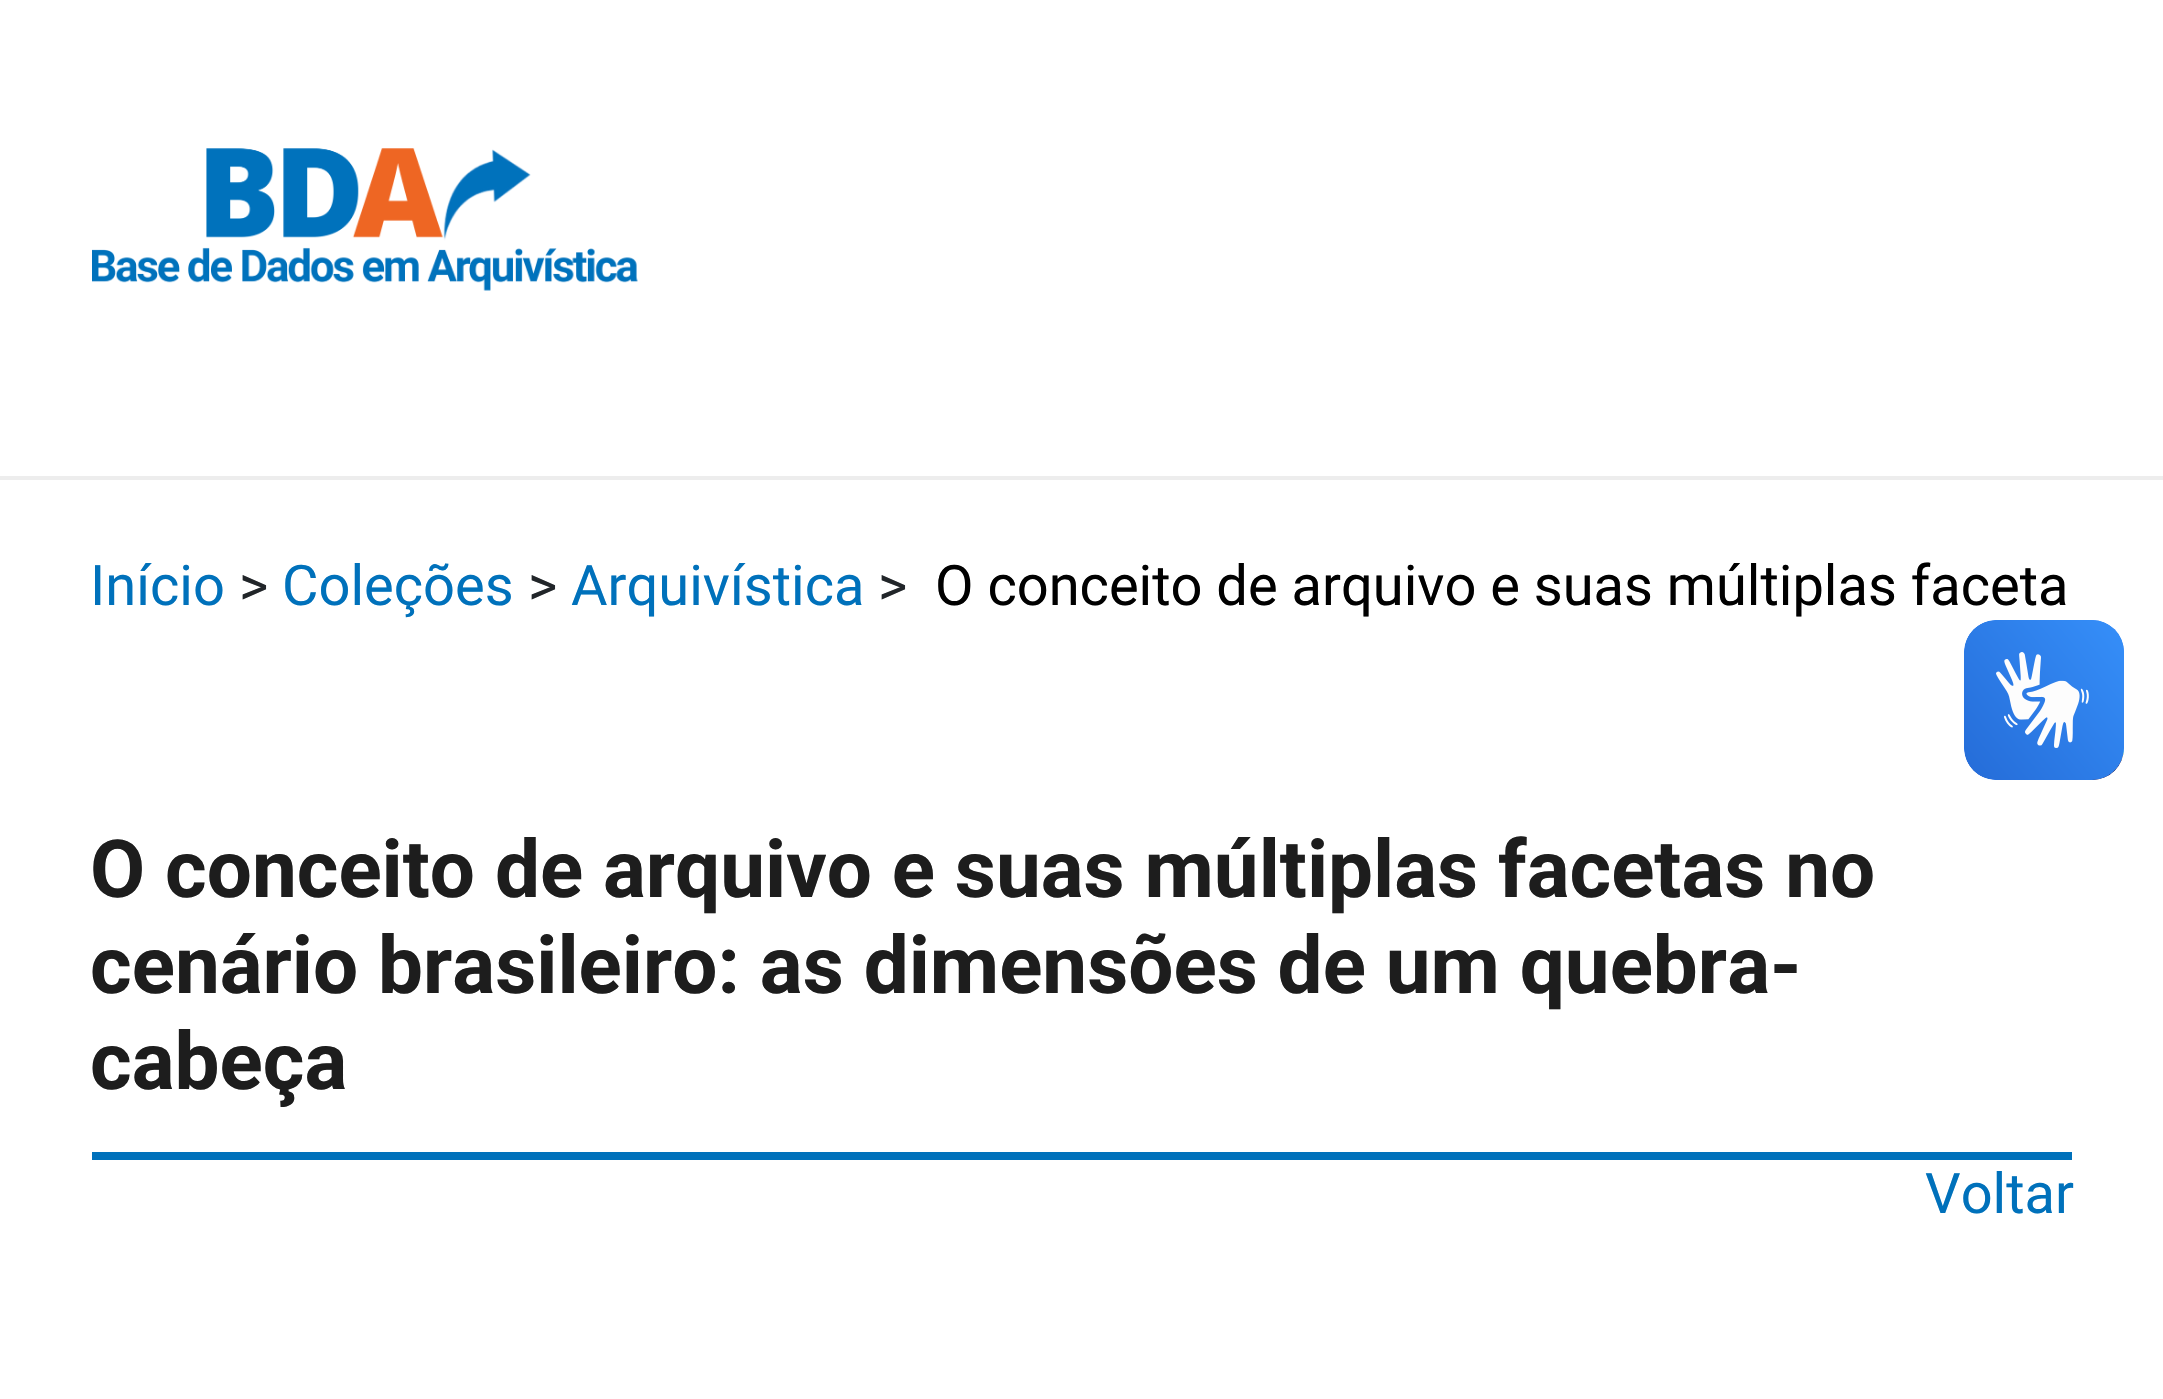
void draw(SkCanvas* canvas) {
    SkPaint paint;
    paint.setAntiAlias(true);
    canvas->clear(0xFFFFFFFF);
    paint.setColor(0xFFEDEDED);
    canvas->drawRect(SkRect::MakeXYWH(0, 476, 2163, 4), paint);
    canvas->drawImageRect(SkImages::DeferredFromEncodedData(SkData::MakeFromFileName("img1.png")), SkRect::MakeXYWH(92, 148, 546, 143), SkSamplingOptions());
    SkFont font1(fontMgr->matchFamilyStyle("Roboto", SkFontStyle::Normal()), 56);
    font1.setSubpixel(true);
    paint.setColor(0xFF0071BB);
    canvas->drawString("Início", 90, 605, font1, paint);
    paint.setColor(0xFF212529);
    canvas->drawString(">", 239, 605, font1, paint);
    paint.setColor(0xFF0071BB);
    canvas->drawString("Coleções", 282, 605, font1, paint);
    paint.setColor(0xFF212529);
    canvas->drawString(">", 528, 605, font1, paint);
    paint.setColor(0xFF0071BB);
    canvas->drawString("Arquivística", 571, 605, font1, paint);
    paint.setColor(0xFF212529);
    canvas->drawString(">", 878, 605, font1, paint);
    paint.setColor(0xFF000000);
    canvas->drawString("O conceito de arquivo e suas múltiplas faceta", 935, 605, font1, paint);
    canvas->drawImageRect(SkImages::DeferredFromEncodedData(SkData::MakeFromFileName("img2.png")), SkRect::MakeXYWH(1964, 620, 160, 160), SkSamplingOptions());
    canvas->drawImageRect(SkImages::DeferredFromEncodedData(SkData::MakeFromFileName("img3.png")), SkRect::MakeXYWH(1964, 620, 160, 160), SkSamplingOptions());
    paint.setColor(0xFF0071BB);
    canvas->drawRect(SkRect::MakeXYWH(92, 1152, 1980, 8), paint);
    SkFont font2(fontMgr->matchFamilyStyle("Roboto", SkFontStyle::Bold()), 80);
    font2.setSubpixel(true);
    paint.setColor(0xFF1D1D1D);
    canvas->drawString("O conceito de arquivo e suas múltiplas facetas no", 90, 897, font2, paint);
    canvas->drawString("cenário brasileiro: as dimensões de um quebra-", 90, 993, font2, paint);
    canvas->drawString("cabeça", 90, 1089, font2, paint);
    paint.setColor(0xFF0071BB);
    canvas->drawString("Voltar", 1925, 1213, font1, paint);
}
